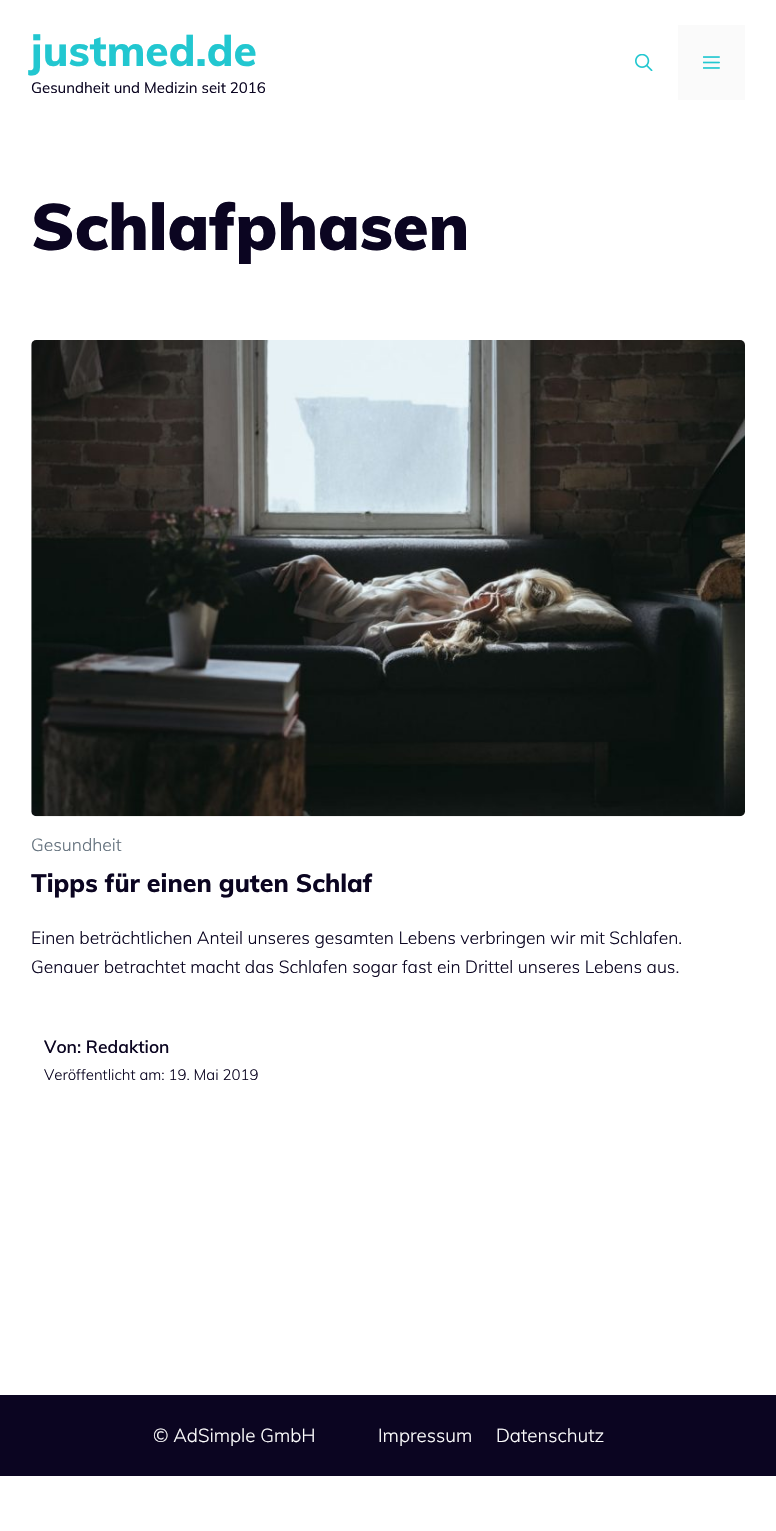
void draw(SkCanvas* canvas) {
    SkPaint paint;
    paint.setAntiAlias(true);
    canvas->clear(0xFFFFFFFF);
    SkFont font1(fontMgr->matchFamilyStyle("Muli", SkFontStyle(800, SkFontStyle::kNormal_Width, SkFontStyle::kUpright_Slant)), 42.5f);
    font1.setSubpixel(true);
    paint.setColor(0xFF22C7D0);
    canvas->drawString("justmed.de", 31, 66, font1, paint);
    SkFont font2(fontMgr->matchFamilyStyle("Muli", SkFontStyle::Normal()), 15);
    font2.setSubpixel(true);
    paint.setColor(0xFF0B0521);
    canvas->drawString("Gesundheit und Medizin seit 2016", 31, 93, font2, paint);
    canvas->drawImageRect(SkImages::DeferredFromEncodedData(SkData::MakeFromFileName("img1.png")), SkRect::MakeXYWH(635, 54, 18, 17), SkSamplingOptions());
    paint.setColor(0xFFFAFAFA);
    canvas->drawRect(SkRect::MakeXYWH(678, 25, 67, 75), paint);
    canvas->drawImageRect(SkImages::DeferredFromEncodedData(SkData::MakeFromFileName("img2.png")), SkRect::MakeXYWH(703, 56, 17, 13), SkSamplingOptions());
    SkFont font3(fontMgr->matchFamilyStyle("Muli", SkFontStyle(900, SkFontStyle::kNormal_Width, SkFontStyle::kUpright_Slant)), 65);
    font3.setSubpixel(true);
    paint.setColor(0xFF0B0521);
    canvas->drawString("Schlafphasen", 31, 250, font3, paint);
    canvas->drawImageRect(SkImages::DeferredFromEncodedData(SkData::MakeFromFileName("img3.png")), SkRect::MakeXYWH(31, 340, 714, 477), SkSamplingOptions());
    SkFont font4(fontMgr->matchFamilyStyle("Muli", SkFontStyle(300, SkFontStyle::kNormal_Width, SkFontStyle::kUpright_Slant)), 17.5f);
    font4.setSubpixel(true);
    paint.setColor(0xFF62707C);
    canvas->drawString("Gesundheit", 31, 851, font4, paint);
    SkFont font5(fontMgr->matchFamilyStyle("Muli", SkFontStyle(800, SkFontStyle::kNormal_Width, SkFontStyle::kUpright_Slant)), 25);
    font5.setSubpixel(true);
    paint.setColor(0xFF0B0521);
    canvas->drawString("Tipps für einen guten Schlaf", 31, 892, font5, paint);
    canvas->drawString("Einen beträchtlichen Anteil unseres gesamten Lebens verbringen wir mit Schlafen.", 31, 944, font4, paint);
    canvas->drawString("Genauer betrachtet macht das Schlafen sogar fast ein Drittel unseres Lebens aus.", 31, 973, font4, paint);
    SkFont font6(fontMgr->matchFamilyStyle("Muli", SkFontStyle(600, SkFontStyle::kNormal_Width, SkFontStyle::kUpright_Slant)), 17.5f);
    font6.setSubpixel(true);
    canvas->drawString("Von: Redaktion", 44, 1053, font6, paint);
    SkFont font7(fontMgr->matchFamilyStyle("Muli", SkFontStyle(300, SkFontStyle::kNormal_Width, SkFontStyle::kUpright_Slant)), 15);
    font7.setSubpixel(true);
    canvas->drawString("Veröffentlicht am: 19. Mai 2019", 44, 1080, font7, paint);
    canvas->drawRect(SkRect::MakeXYWH(0, 1395, 776, 81), paint);
    SkFont font8(fontMgr->matchFamilyStyle("Muli", SkFontStyle(300, SkFontStyle::kNormal_Width, SkFontStyle::kUpright_Slant)), 18.75f);
    font8.setSubpixel(true);
    paint.setColor(0xFFFFFFFF);
    canvas->drawString("© AdSimple GmbH", 153, 1442, font8, paint);
    canvas->drawString("Impressum", 378, 1442, font8, paint);
    canvas->drawString("Datenschutz", 496, 1442, font8, paint);
}
